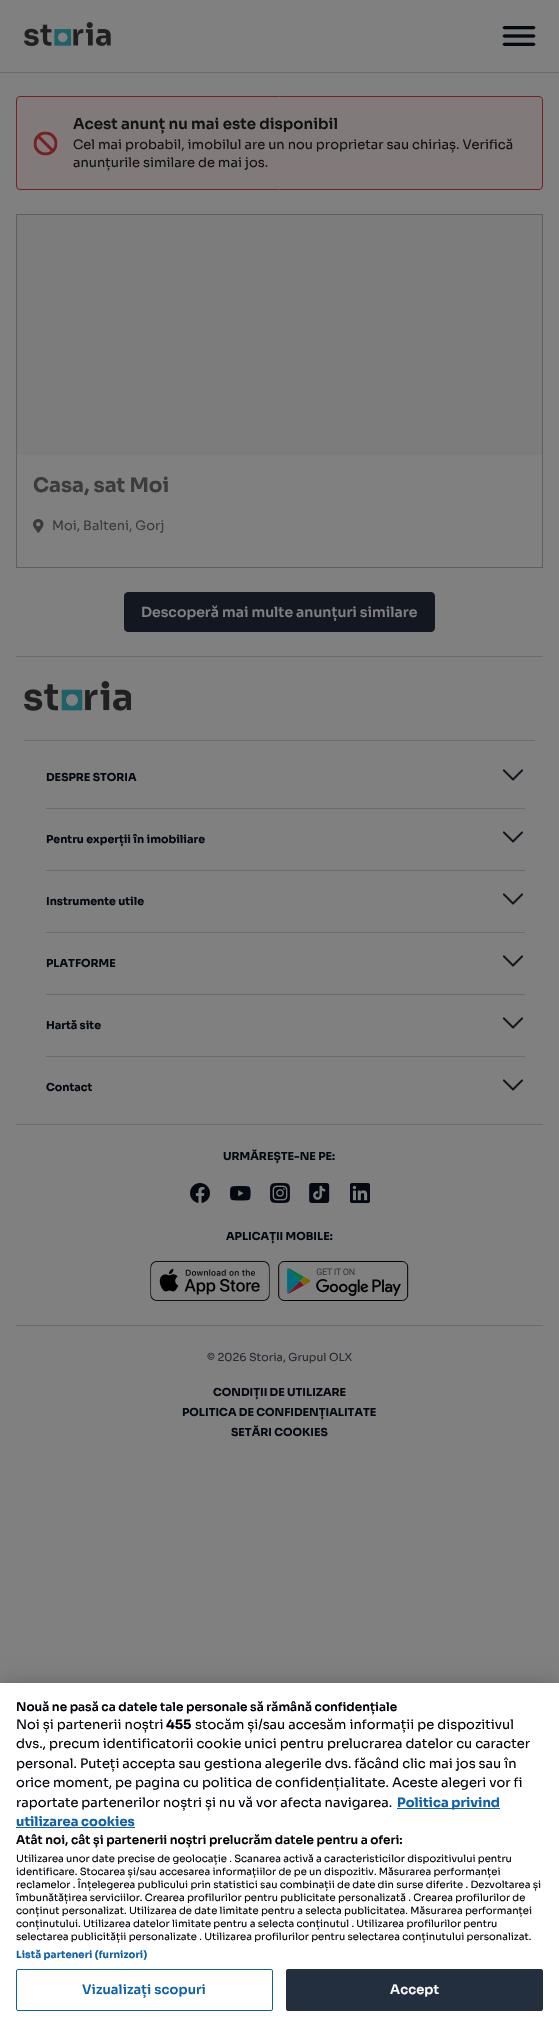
void draw(SkCanvas* canvas) {
    SkPaint paint;
    paint.setAntiAlias(true);
    auto spacedText = [&](const char* s, float x, float y, const SkFont& font, const SkPaint& ink, float letter, float word) {
        std::vector<SkGlyphID> glyphs(font.countText(s, strlen(s), SkTextEncoding::kUTF8));
        std::vector<float> xs(glyphs.size());
        font.textToGlyphs(s, strlen(s), SkTextEncoding::kUTF8, glyphs);
        font.getXPos(glyphs, xs, x);
        float extra = 0;
        for (size_t i = 0; i < glyphs.size(); i++) {
            xs[i] += extra;
            extra += letter + word * (glyphs[i] == font.unicharToGlyph(' '));
        }
        canvas->drawTextBlob(SkTextBlob::MakeFromPosHGlyphs(glyphs, xs, y, font), 0, 0, ink);
    };
    canvas->clear(0xFF808080);
    paint.setColor(0xFF6A6B6D);
    canvas->drawRect(SkRect::MakeXYWH(0, 72, 559, 1), paint);
    canvas->drawImageRect(SkImages::DeferredFromEncodedData(SkData::MakeFromFileName("img1.png")), SkRect::MakeXYWH(24, 22, 87, 24), SkSamplingOptions());
    canvas->drawImageRect(SkImages::DeferredFromEncodedData(SkData::MakeFromFileName("img2.png")), SkRect::MakeXYWH(502, 26, 34, 20), SkSamplingOptions());
    paint.setColor(0xFF807A7A);
    canvas->drawRoundRect(SkRect::MakeXYWH(16.5f, 96.5f, 526, 93), 3.5f, 3.5f, paint);
    paint.setStyle(SkPaint::kStroke_Style);
    paint.setStrokeWidth(1);
    paint.setColor(0xFF772024);
    canvas->drawRoundRect(SkRect::MakeXYWH(16.5f, 96.5f, 526, 93), 3.5f, 3.5f, paint);
    canvas->drawImageRect(SkImages::DeferredFromEncodedData(SkData::MakeFromFileName("img3.png")), SkRect::MakeXYWH(33, 131, 25, 25), SkSamplingOptions());
    SkFont font1(fontMgr->matchFamilyStyle("Sora", SkFontStyle(600, SkFontStyle::kNormal_Width, SkFontStyle::kUpright_Slant)), 15);
    font1.setSubpixel(true);
    paint.setStyle(SkPaint::kFill_Style);
    paint.setColor(0xFF111111);
    canvas->drawString("Acest anunț nu mai este disponibil", 73, 129, font1, paint);
    SkFont font2(fontMgr->matchFamilyStyle("Sora", SkFontStyle::Normal()), 13);
    font2.setSubpixel(true);
    canvas->drawString("Cel mai probabil, imobilul are un nou proprietar sau chiriaș. Verifică", 73, 149, font2, paint);
    canvas->drawString("anunțurile similare de mai jos.", 73, 167, font2, paint);
    paint.setStyle(SkPaint::kStroke_Style);
    paint.setColor(0xFF5F5F5F);
    canvas->drawRect(SkRect::MakeXYWH(16.5f, 214.5f, 526, 353), paint);
    paint.setStyle(SkPaint::kFill_Style);
    paint.setColor(0xFF7C7C7C);
    canvas->drawRect(SkRect::MakeXYWH(17, 215, 525, 240), paint);
    SkFont font3(fontMgr->matchFamilyStyle("Sora", SkFontStyle::Bold()), 20);
    font3.setSubpixel(true);
    paint.setColor(0xFF3B3B3B);
    canvas->drawString("Casa, sat Moi", 33, 492, font3, paint);
    canvas->drawImageRect(SkImages::DeferredFromEncodedData(SkData::MakeFromFileName("img4.png")), SkRect::MakeXYWH(33, 519, 11, 14), SkSamplingOptions());
    canvas->drawString("Moi, Balteni, Gorj", 52, 530, font2, paint);
    paint.setColor(0xFF121720);
    canvas->drawRoundRect(SkRect::MakeXYWH(124.5f, 592.5f, 310, 39), 3.5f, 3.5f, paint);
    paint.setStyle(SkPaint::kStroke_Style);
    canvas->drawRoundRect(SkRect::MakeXYWH(124.5f, 592.5f, 310, 39), 3.5f, 3.5f, paint);
    SkFont font4(fontMgr->matchFamilyStyle("Sora", SkFontStyle(600, SkFontStyle::kNormal_Width, SkFontStyle::kUpright_Slant)), 14);
    font4.setSubpixel(true);
    paint.setStyle(SkPaint::kFill_Style);
    paint.setColor(0xFF808080);
    canvas->drawString("Descoperă mai multe anunțuri similare", 141, 617, font4, paint);
    paint.setColor(0xFF6A6B6D);
    canvas->drawRect(SkRect::MakeXYWH(16, 656, 527, 1), paint);
    canvas->drawImageRect(SkImages::DeferredFromEncodedData(SkData::MakeFromFileName("img5.png")), SkRect::MakeXYWH(24, 681, 107, 30), SkSamplingOptions());
    canvas->drawRect(SkRect::MakeXYWH(24, 740, 511, 1), paint);
    canvas->drawRect(SkRect::MakeXYWH(46, 808, 479, 1), paint);
    SkFont font5(fontMgr->matchFamilyStyle("Sora", SkFontStyle::Bold()), 11);
    font5.setSubpixel(true);
    paint.setColor(0xFF040911);
    canvas->drawString("DESPRE STORIA", 46, 781, font5, paint);
    canvas->drawImageRect(SkImages::DeferredFromEncodedData(SkData::MakeFromFileName("img6.png")), SkRect::MakeXYWH(503, 769, 20, 12), SkSamplingOptions());
    paint.setColor(0xFF6A6B6D);
    canvas->drawRect(SkRect::MakeXYWH(46, 870, 479, 1), paint);
    paint.setColor(0xFF040911);
    canvas->drawString("Pentru experții în imobiliare", 46, 843, font5, paint);
    canvas->drawImageRect(SkImages::DeferredFromEncodedData(SkData::MakeFromFileName("img6.png")), SkRect::MakeXYWH(503, 831, 20, 12), SkSamplingOptions());
    paint.setColor(0xFF6A6B6D);
    canvas->drawRect(SkRect::MakeXYWH(46, 932, 479, 1), paint);
    paint.setColor(0xFF040911);
    canvas->drawString("Instrumente utile", 46, 905, font5, paint);
    canvas->drawImageRect(SkImages::DeferredFromEncodedData(SkData::MakeFromFileName("img6.png")), SkRect::MakeXYWH(503, 893, 20, 12), SkSamplingOptions());
    paint.setColor(0xFF6A6B6D);
    canvas->drawRect(SkRect::MakeXYWH(46, 994, 479, 1), paint);
    paint.setColor(0xFF040911);
    canvas->drawString("PLATFORME", 46, 967, font5, paint);
    canvas->drawImageRect(SkImages::DeferredFromEncodedData(SkData::MakeFromFileName("img6.png")), SkRect::MakeXYWH(503, 955, 20, 12), SkSamplingOptions());
    paint.setColor(0xFF6A6B6D);
    canvas->drawRect(SkRect::MakeXYWH(46, 1056, 479, 1), paint);
    paint.setColor(0xFF040911);
    canvas->drawString("Hartă site", 46, 1029, font5, paint);
    canvas->drawImageRect(SkImages::DeferredFromEncodedData(SkData::MakeFromFileName("img6.png")), SkRect::MakeXYWH(503, 1017, 20, 12), SkSamplingOptions());
    canvas->drawString("Contact", 46, 1091, font5, paint);
    canvas->drawImageRect(SkImages::DeferredFromEncodedData(SkData::MakeFromFileName("img6.png")), SkRect::MakeXYWH(503, 1079, 20, 12), SkSamplingOptions());
    paint.setColor(0xFF6A6B6D);
    canvas->drawRect(SkRect::MakeXYWH(16, 1124, 527, 1), paint);
    paint.setColor(0xFF040911);
    canvas->drawString("URMĂREȘTE-NE PE:", 223, 1160, font5, paint);
    canvas->drawImageRect(SkImages::DeferredFromEncodedData(SkData::MakeFromFileName("img7.png")), SkRect::MakeXYWH(190, 1183, 20, 20), SkSamplingOptions());
    canvas->drawImageRect(SkImages::DeferredFromEncodedData(SkData::MakeFromFileName("img8.png")), SkRect::MakeXYWH(230, 1186, 21, 15), SkSamplingOptions());
    canvas->drawImageRect(SkImages::DeferredFromEncodedData(SkData::MakeFromFileName("img9.png")), SkRect::MakeXYWH(270, 1183, 20, 20), SkSamplingOptions());
    canvas->drawImageRect(SkImages::DeferredFromEncodedData(SkData::MakeFromFileName("img10.png")), SkRect::MakeXYWH(309, 1183, 21, 20), SkSamplingOptions());
    canvas->drawImageRect(SkImages::DeferredFromEncodedData(SkData::MakeFromFileName("img11.png")), SkRect::MakeXYWH(350, 1183, 20, 20), SkSamplingOptions());
    canvas->drawString("APLICAȚII MOBILE:", 226, 1240, font5, paint);
    canvas->drawImageRect(SkImages::DeferredFromEncodedData(SkData::MakeFromFileName("img12.png")), SkRect::MakeXYWH(150, 1261, 120, 40), SkSamplingOptions());
    canvas->drawImageRect(SkImages::DeferredFromEncodedData(SkData::MakeFromFileName("img13.png")), SkRect::MakeXYWH(278, 1261, 131, 40), SkSamplingOptions());
    paint.setColor(0xFF6A6B6D);
    canvas->drawRect(SkRect::MakeXYWH(16, 1325, 527, 1), paint);
    SkFont font6(fontMgr->matchFamilyStyle("Sora", SkFontStyle::Normal()), 11);
    font6.setSubpixel(true);
    paint.setColor(0xFF252930);
    canvas->drawString("© 2026 Storia, Grupul OLX", 207, 1361, font6, paint);
    paint.setColor(0xFF040911);
    canvas->drawString("CONDIȚII DE UTILIZARE", 213, 1396, font5, paint);
    canvas->drawString("POLITICA DE CONFIDENȚIALITATE", 182, 1416, font5, paint);
    canvas->drawString("SETĂRI COOKIES", 231, 1436, font5, paint);
    paint.setColor(0x33000000);
    paint.setMaskFilter(SkMaskFilter::MakeBlur(kNormal_SkBlurStyle, 9));
    canvas->drawRect(SkRect::MakeXYWH(0, 1683, 559, 344), paint);
    paint.setMaskFilter(nullptr);
    paint.setColor(0xFFFFFFFF);
    canvas->drawRect(SkRect::MakeXYWH(0, 1683, 559, 344), paint);
    SkFont font7(fontMgr->matchFamilyStyle("Sora", SkFontStyle(600, SkFontStyle::kNormal_Width, SkFontStyle::kUpright_Slant)), 12);
    font7.setSubpixel(true);
    paint.setColor(0xFF020309);
    canvas->drawString("Nouă ne pasă ca datele tale personale să rămână confidențiale", 16, 1711, font7, paint);
    canvas->drawString("Noi și partenerii noștri", 16, 1729, font2, paint);
    SkFont font8(fontMgr->matchFamilyStyle("Sora", SkFontStyle::Bold()), 13);
    font8.setSubpixel(true);
    canvas->drawString("455", 166, 1729, font8, paint);
    canvas->drawString("stocăm și/sau accesăm informații pe dispozitivul", 195, 1729, font2, paint);
    canvas->drawString("dvs., precum identificatorii cookie unici pentru prelucrarea datelor cu caracter", 16, 1748, font2, paint);
    canvas->drawString("personal. Puteți accepta sau gestiona alegerile dvs. făcând clic mai jos sau în", 16, 1768, font2, paint);
    canvas->drawString("orice moment, pe pagina cu politica de confidențialitate. Aceste alegeri vor fi", 16, 1787, font2, paint);
    canvas->drawString("raportate partenerilor noștri și nu vă vor afecta navigarea.", 16, 1807, font2, paint);
    paint.setColor(0xFF0D61AB);
    canvas->drawRect(SkRect::MakeXYWH(397, 1808, 103, 1), paint);
    canvas->drawString("Politica privind", 397, 1807, font8, paint);
    canvas->drawString("utilizarea cookies", 16, 1826, font8, paint);
    canvas->drawRect(SkRect::MakeXYWH(16, 1827, 119, 1), paint);
    paint.setColor(0xFF020309);
    canvas->drawString("Atât noi, cât și partenerii noștri prelucrăm datele pentru a oferi:", 16, 1844, font7, paint);
    SkFont font9(fontMgr->matchFamilyStyle("Sora", SkFontStyle::Normal()), 10);
    font9.setSubpixel(true);
    canvas->drawString("Utilizarea unor date precise de geolocație . Scanarea activă a caracteristicilor dispozitivului pentru", 16, 1862, font9, paint);
    canvas->drawString("identificare. Stocarea și/sau accesarea informațiilor de pe un dispozitiv. Măsurarea performanței", 16, 1875, font9, paint);
    canvas->drawString("reclamelor . Înțelegerea publicului prin statistici sau combinații de date din surse diferite . Dezvoltarea și", 16, 1888, font9, paint);
    canvas->drawString("îmbunătățirea serviciilor. Crearea profilurilor pentru publicitate personalizată . Crearea profilurilor de", 16, 1901, font9, paint);
    canvas->drawString("conținut personalizat. Utilizarea de date limitate pentru a selecta publicitatea. Măsurarea performanței", 16, 1914, font9, paint);
    canvas->drawString("conținutului. Utilizarea datelor limitate pentru a selecta conținutul . Utilizarea profilurilor pentru", 16, 1927, font9, paint);
    canvas->drawString("selectarea publicității personalizate . Utilizarea profilurilor pentru selectarea conținutului personalizat.", 16, 1940, font9, paint);
    SkFont font10(fontMgr->matchFamilyStyle("Sora", SkFontStyle::Bold()), 10);
    font10.setSubpixel(true);
    paint.setColor(0xFF0D61AB);
    spacedText("Listă parteneri (furnizori)", 16, 1958, font10, paint, 0.1f, 0);
    paint.setStyle(SkPaint::kStroke_Style);
    canvas->drawRoundRect(SkRect::MakeXYWH(16.5f, 1969.5f, 256, 41), 1.5f, 1.5f, paint);
    SkFont font11(fontMgr->matchFamilyStyle("Sora", SkFontStyle(600, SkFontStyle::kNormal_Width, SkFontStyle::kUpright_Slant)), 13);
    font11.setSubpixel(true);
    paint.setStyle(SkPaint::kFill_Style);
    spacedText("Vizualizați scopuri", 82, 1994, font11, paint, 0.1f, 0);
    paint.setColor(0xFF232E3F);
    canvas->drawRoundRect(SkRect::MakeXYWH(286.5f, 1969.5f, 256, 41), 1.5f, 1.5f, paint);
    paint.setStyle(SkPaint::kStroke_Style);
    canvas->drawRoundRect(SkRect::MakeXYWH(286.5f, 1969.5f, 256, 41), 1.5f, 1.5f, paint);
    paint.setStyle(SkPaint::kFill_Style);
    paint.setColor(0xFFFFFFFF);
    spacedText("Accept", 390, 1994, font11, paint, 0.1f, 0);
}
